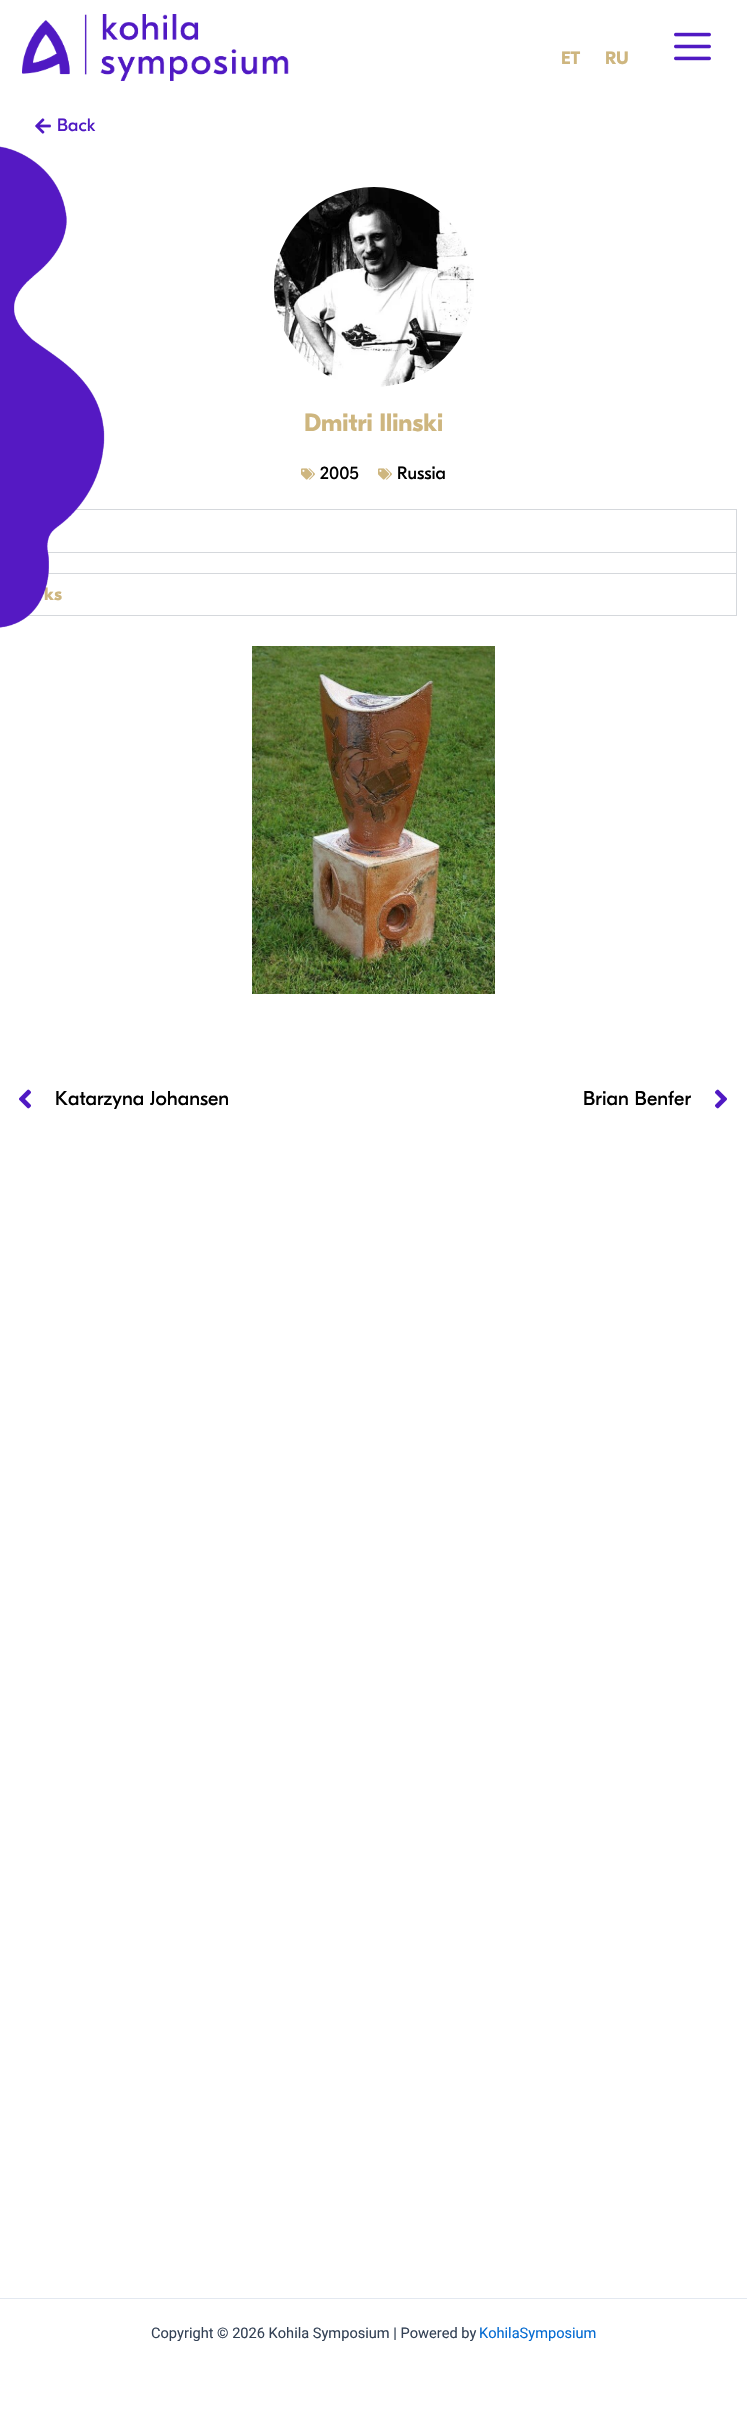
void draw(SkCanvas* canvas) {
    SkPaint paint;
    paint.setAntiAlias(true);
    canvas->clear(0xFFFFFFFF);
    canvas->drawImageRect(SkImages::DeferredFromEncodedData(SkData::MakeFromFileName("img1.png")), SkRect::MakeXYWH(22, 14, 267, 67), SkSamplingOptions());
    SkFont font1(fontMgr->matchFamilyStyle("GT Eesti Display", SkFontStyle::Bold()), 18);
    font1.setSubpixel(true);
    paint.setColor(0xFFCEB67F);
    canvas->drawString("ET", 561, 64, font1, paint);
    canvas->drawString("RU", 605, 64, font1, paint);
    canvas->drawImageRect(SkImages::DeferredFromEncodedData(SkData::MakeFromFileName("img2.png")), SkRect::MakeXYWH(674, 32, 37, 29), SkSamplingOptions());
    canvas->drawImageRect(SkImages::DeferredFromEncodedData(SkData::MakeFromFileName("img3.png")), SkRect::MakeXYWH(35, 118, 16, 16), SkSamplingOptions());
    SkFont font2(fontMgr->matchFamilyStyle("GT Eesti Display", SkFontStyle::Normal()), 18);
    font2.setSubpixel(true);
    paint.setColor(0xFF5019C3);
    canvas->drawString("Back", 57, 131, font2, paint);
    paint.setColor(0xFFD5D8DC);
    canvas->drawRect(SkRect::MakeXYWH(27, 615, 710, 1), paint);
    canvas->drawRect(SkRect::MakeXYWH(75, 509, 662, 1), paint);
    canvas->drawRect(SkRect::MakeXYWH(47, 552, 690, 1), paint);
    canvas->drawRect(SkRect::MakeXYWH(48, 573, 689, 1), paint);
    paint.setColor(0xFFCEB67F);
    canvas->drawString("ks", 44, 600, font1, paint);
    canvas->drawImageRect(SkImages::DeferredFromEncodedData(SkData::MakeFromFileName("img4.png")), SkRect::MakeXYWH(0, 146, 105, 482), SkSamplingOptions());
    canvas->drawImageRect(SkImages::DeferredFromEncodedData(SkData::MakeFromFileName("img5.png")), SkRect::MakeXYWH(252, 646, 243, 348), SkSamplingOptions());
    canvas->drawImageRect(SkImages::DeferredFromEncodedData(SkData::MakeFromFileName("img6.png")), SkRect::MakeXYWH(274, 187, 200, 200), SkSamplingOptions());
    SkFont font3(fontMgr->matchFamilyStyle("GT Eesti Display", SkFontStyle::Bold()), 25);
    font3.setSubpixel(true);
    canvas->drawString("Dmitri Ilinski", 304, 431, font3, paint);
    canvas->drawImageRect(SkImages::DeferredFromEncodedData(SkData::MakeFromFileName("img7.png")), SkRect::MakeXYWH(301, 468, 14, 12), SkSamplingOptions());
    paint.setColor(0xFF000000);
    canvas->drawString("2005", 320, 479, font2, paint);
    canvas->drawImageRect(SkImages::DeferredFromEncodedData(SkData::MakeFromFileName("img7.png")), SkRect::MakeXYWH(378, 468, 14, 12), SkSamplingOptions());
    canvas->drawString("Russia", 397, 479, font2, paint);
    paint.setColor(0xFFD5D8DC);
    canvas->drawRect(SkRect::MakeXYWH(736, 509, 1, 43), paint);
    canvas->drawRect(SkRect::MakeXYWH(736, 552, 1, 21), paint);
    canvas->drawRect(SkRect::MakeXYWH(736, 573, 1, 42), paint);
    canvas->drawImageRect(SkImages::DeferredFromEncodedData(SkData::MakeFromFileName("img8.png")), SkRect::MakeXYWH(19, 1089, 12, 20), SkSamplingOptions());
    SkFont font4(fontMgr->matchFamilyStyle("GT Eesti Display", SkFontStyle::Normal()), 20);
    font4.setSubpixel(true);
    paint.setColor(0xFF000000);
    canvas->drawString("Katarzyna Johansen", 55, 1105, font4, paint);
    canvas->drawString("Brian Benfer", 583, 1105, font4, paint);
    canvas->drawImageRect(SkImages::DeferredFromEncodedData(SkData::MakeFromFileName("img9.png")), SkRect::MakeXYWH(715, 1089, 12, 20), SkSamplingOptions());
    paint.setColor(0xFFE2E8F0);
    canvas->drawRect(SkRect::MakeXYWH(0, 2298, 747, 1), paint);
    SkFont font5(fontMgr->matchFamilyStyle("Roboto", SkFontStyle::Normal()), 14.6f);
    font5.setSubpixel(true);
    paint.setColor(0xFF334155);
    canvas->drawString("Copyright © 2026 Kohila Symposium | Powered by", 151, 2338, font5, paint);
    paint.setColor(0xFF046BD2);
    canvas->drawString("KohilaSymposium", 479, 2338, font5, paint);
}
